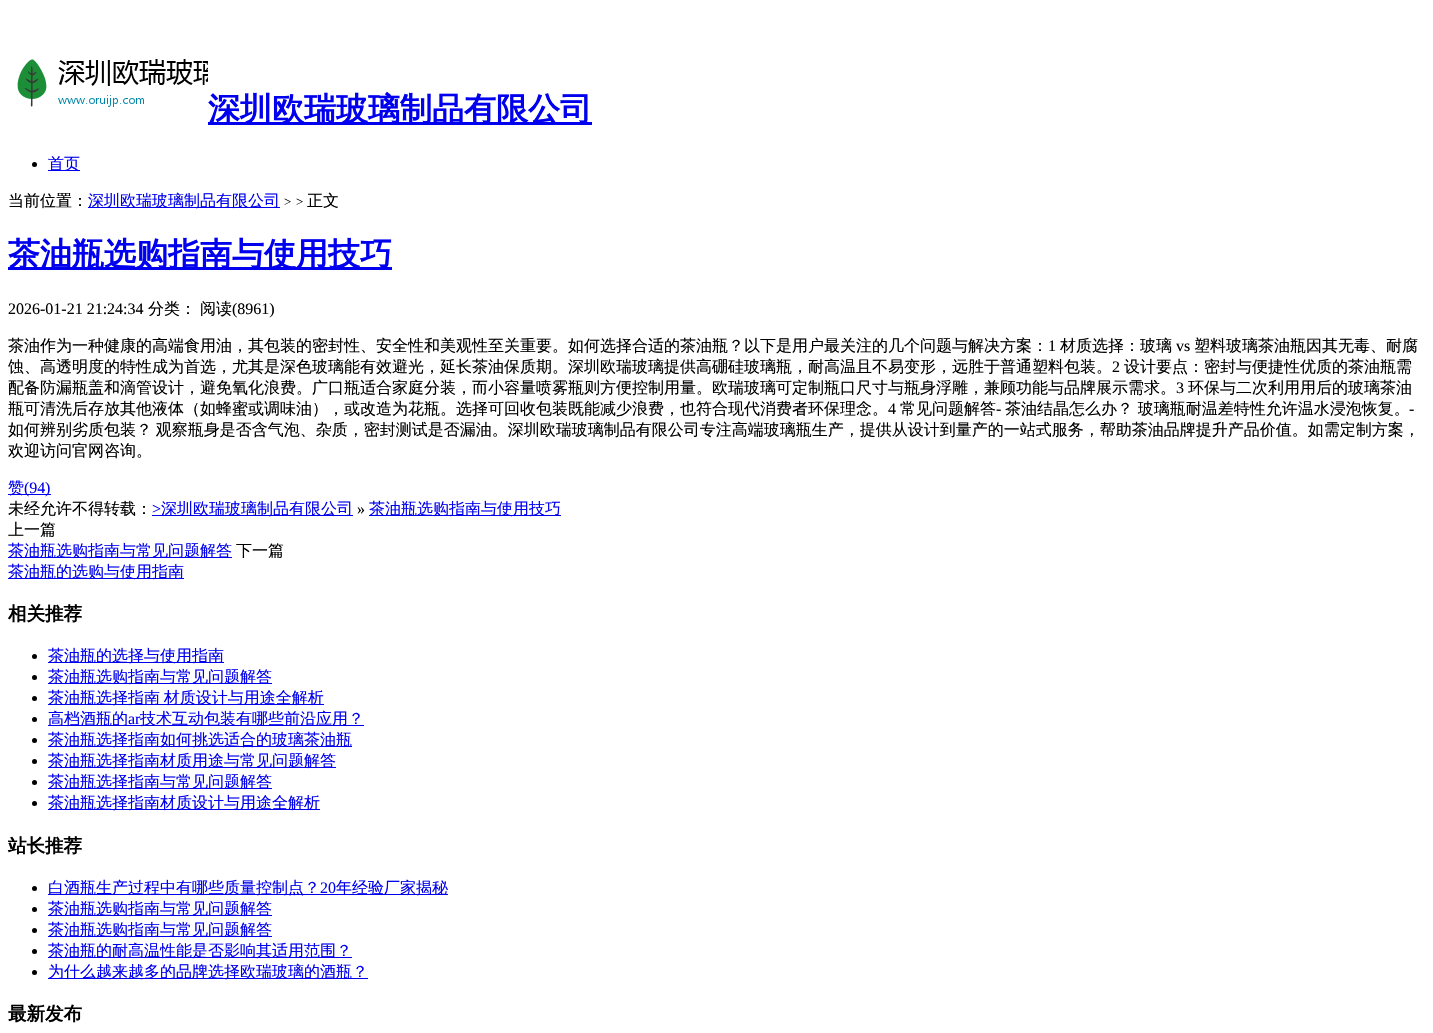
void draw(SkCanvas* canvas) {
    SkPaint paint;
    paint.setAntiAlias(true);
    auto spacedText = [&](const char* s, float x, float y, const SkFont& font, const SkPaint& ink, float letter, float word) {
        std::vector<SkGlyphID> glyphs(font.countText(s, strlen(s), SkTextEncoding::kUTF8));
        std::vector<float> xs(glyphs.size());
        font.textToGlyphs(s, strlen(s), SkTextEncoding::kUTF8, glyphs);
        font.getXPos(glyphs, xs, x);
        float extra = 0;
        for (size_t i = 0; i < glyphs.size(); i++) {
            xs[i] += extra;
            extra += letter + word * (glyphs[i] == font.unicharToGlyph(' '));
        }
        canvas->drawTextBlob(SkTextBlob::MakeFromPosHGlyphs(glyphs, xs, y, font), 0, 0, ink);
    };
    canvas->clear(0xFFFFFFFF);
    canvas->drawImageRect(SkImages::DeferredFromEncodedData(SkData::MakeFromFileName("img1.png")), SkRect::MakeXYWH(17, 59, 191, 48), SkSamplingOptions());
    paint.setColor(0xFF0000EE);
    canvas->drawRect(SkRect::MakeXYWH(208, 122, 384, 3), paint);
    SkFont font1(fontMgr->matchFamilyStyle("WenQuanYi Zen Hei", SkFontStyle::Bold()), 32);
    font1.setSubpixel(true);
    canvas->drawString("深圳欧瑞玻璃制品有限公司", 208, 120, font1, paint);
    paint.setColor(0xFF000000);
    canvas->drawCircle(34.5f, 164.5f, 2.5f, paint);
    paint.setColor(0xFF0000EE);
    canvas->drawRect(SkRect::MakeXYWH(48, 170, 32, 1), paint);
    SkFont font2(fontMgr->matchFamilyStyle("WenQuanYi Zen Hei", SkFontStyle(500, SkFontStyle::kNormal_Width, SkFontStyle::kUpright_Slant)), 16);
    font2.setSubpixel(true);
    canvas->drawString("首页", 48, 169, font2, paint);
    paint.setColor(0xFF000000);
    canvas->drawString("当前位置：", 8, 206, font2, paint);
    paint.setColor(0xFF0000EE);
    canvas->drawRect(SkRect::MakeXYWH(88, 207, 192, 1), paint);
    canvas->drawString("深圳欧瑞玻璃制品有限公司", 88, 206, font2, paint);
    SkFont font3(fontMgr->matchFamilyStyle("Liberation Serif", SkFontStyle::Normal()), 13);
    font3.setSubpixel(true);
    paint.setColor(0xFF000000);
    canvas->drawString(">", 284, 206, font3, paint);
    canvas->drawString(">", 296, 206, font3, paint);
    canvas->drawString("正文", 307, 206, font2, paint);
    paint.setColor(0xFF0000EE);
    canvas->drawRect(SkRect::MakeXYWH(8, 267, 384, 3), paint);
    canvas->drawString("茶油瓶选购指南与使用技巧", 8, 265, font1, paint);
    SkFont font4(fontMgr->matchFamilyStyle("Liberation Serif", SkFontStyle::Normal()), 16);
    font4.setSubpixel(true);
    paint.setColor(0xFF000000);
    canvas->drawString("2026-01-21 21:24:34", 8, 314, font4, paint);
    canvas->drawString("分类：", 148, 314, font2, paint);
    canvas->drawString("阅读", 200, 314, font2, paint);
    canvas->drawString("(8961)", 232, 314, font4, paint);
    canvas->drawString("茶油作为一种健康的高端食用油，其包装的密封性、安全性和美观性至关重要。如何选择合适的茶油瓶？以下是用户最关注的几个问题与解决方案：", 8, 351, font2, paint);
    canvas->drawString("1", 1048, 351, font4, paint);
    canvas->drawString("材质选择：玻璃", 1060, 351, font2, paint);
    canvas->drawString("vs", 1176, 351, font4, paint);
    canvas->drawString("塑料玻璃茶油瓶因其无毒、耐腐", 1194, 351, font2, paint);
    canvas->drawString("蚀、高透明度的特性成为首选，尤其是深色玻璃能有效避光，延长茶油保质期。深圳欧瑞玻璃提供高硼硅玻璃瓶，耐高温且不易变形，远胜于普通塑料包装。", 8, 372, font2, paint);
    canvas->drawString("2", 1112, 372, font4, paint);
    canvas->drawString("设计要点：密封与便捷性优质的茶油瓶需", 1124, 372, font2, paint);
    canvas->drawString("配备防漏瓶盖和滴管设计，避免氧化浪费。广口瓶适合家庭分装，而小容量喷雾瓶则方便控制用量。欧瑞玻璃可定制瓶口尺寸与瓶身浮雕，兼顾功能与品牌展示需求。", 8, 393, font2, paint);
    canvas->drawString("3", 1176, 393, font4, paint);
    canvas->drawString("环保与二次利用用后的玻璃茶油", 1188, 393, font2, paint);
    canvas->drawString("瓶可清洗后存放其他液体（如蜂蜜或调味油），或改造为花瓶。选择可回收包装既能减少浪费，也符合现代消费者环保理念。", 8, 414, font2, paint);
    canvas->drawString("4", 888, 414, font4, paint);
    canvas->drawString("常见问题解答", 900, 414, font2, paint);
    canvas->drawString("-", 996, 414, font4, paint);
    canvas->drawString("茶油结晶怎么办？ 玻璃瓶耐温差特性允许温水浸泡恢复。", 1005, 414, font2, paint);
    canvas->drawString("-", 1409, 414, font4, paint);
    spacedText("如何辨别劣质包装？ 观察瓶身是否含气泡、杂质，密封测试是否漏油。深圳欧瑞玻璃制品有限公司专注高端玻璃瓶生产，提供从设计到量产的一站式服务，帮助茶油品牌提升产品价值。如需定制方案，", 8, 435, font2, paint, 0, -1);
    canvas->drawString("欢迎访问官网咨询。", 8, 456, font2, paint);
    paint.setColor(0xFF0000EE);
    canvas->drawRect(SkRect::MakeXYWH(8, 494, 37, 1), paint);
    canvas->drawString("赞", 8, 493, font2, paint);
    canvas->drawString("(94", 24, 493, font4, paint);
    canvas->drawRect(SkRect::MakeXYWH(45, 494, 6, 1), paint);
    canvas->drawString(")", 45, 493, font4, paint);
    paint.setColor(0xFF000000);
    canvas->drawString("未经允许不得转载：", 8, 514, font2, paint);
    paint.setColor(0xFF0000EE);
    canvas->drawString(">", 152, 514, font4, paint);
    canvas->drawRect(SkRect::MakeXYWH(152, 515, 201, 1), paint);
    canvas->drawString("深圳欧瑞玻璃制品有限公司", 161, 514, font2, paint);
    paint.setColor(0xFF000000);
    canvas->drawString("»", 357, 514, font4, paint);
    paint.setColor(0xFF0000EE);
    canvas->drawRect(SkRect::MakeXYWH(369, 515, 192, 1), paint);
    canvas->drawString("茶油瓶选购指南与使用技巧", 369, 514, font2, paint);
    paint.setColor(0xFF000000);
    canvas->drawString("上一篇", 8, 535, font2, paint);
    paint.setColor(0xFF0000EE);
    canvas->drawRect(SkRect::MakeXYWH(8, 557, 224, 1), paint);
    canvas->drawString("茶油瓶选购指南与常见问题解答", 8, 556, font2, paint);
    paint.setColor(0xFF000000);
    canvas->drawString("下一篇", 236, 556, font2, paint);
    paint.setColor(0xFF0000EE);
    canvas->drawRect(SkRect::MakeXYWH(8, 578, 176, 1), paint);
    canvas->drawString("茶油瓶的选购与使用指南", 8, 577, font2, paint);
    SkFont font5(fontMgr->matchFamilyStyle("WenQuanYi Zen Hei", SkFontStyle::Bold()), 18.5f);
    font5.setSubpixel(true);
    paint.setColor(0xFF000000);
    canvas->drawString("相关推荐", 8, 620, font5, paint);
    canvas->drawCircle(34.5f, 656.5f, 2.5f, paint);
    paint.setColor(0xFF0000EE);
    canvas->drawRect(SkRect::MakeXYWH(48, 662, 176, 1), paint);
    canvas->drawString("茶油瓶的选择与使用指南", 48, 661, font2, paint);
    paint.setColor(0xFF000000);
    canvas->drawCircle(34.5f, 677.5f, 2.5f, paint);
    paint.setColor(0xFF0000EE);
    canvas->drawRect(SkRect::MakeXYWH(48, 683, 224, 1), paint);
    canvas->drawString("茶油瓶选购指南与常见问题解答", 48, 682, font2, paint);
    paint.setColor(0xFF000000);
    canvas->drawCircle(34.5f, 698.5f, 2.5f, paint);
    paint.setColor(0xFF0000EE);
    canvas->drawRect(SkRect::MakeXYWH(48, 704, 276, 1), paint);
    spacedText("茶油瓶选择指南 材质设计与用途全解析", 48, 703, font2, paint, 0, -1);
    paint.setColor(0xFF000000);
    canvas->drawCircle(34.5f, 719.5f, 2.5f, paint);
    paint.setColor(0xFF0000EE);
    canvas->drawRect(SkRect::MakeXYWH(48, 725, 316, 1), paint);
    canvas->drawString("高档酒瓶的", 48, 724, font2, paint);
    canvas->drawString("ar", 128, 724, font4, paint);
    canvas->drawString("技术互动包装有哪些前沿应用？", 140, 724, font2, paint);
    paint.setColor(0xFF000000);
    canvas->drawCircle(34.5f, 740.5f, 2.5f, paint);
    paint.setColor(0xFF0000EE);
    canvas->drawRect(SkRect::MakeXYWH(48, 746, 304, 1), paint);
    canvas->drawString("茶油瓶选择指南如何挑选适合的玻璃茶油瓶", 48, 745, font2, paint);
    paint.setColor(0xFF000000);
    canvas->drawCircle(34.5f, 761.5f, 2.5f, paint);
    paint.setColor(0xFF0000EE);
    canvas->drawRect(SkRect::MakeXYWH(48, 767, 288, 1), paint);
    canvas->drawString("茶油瓶选择指南材质用途与常见问题解答", 48, 766, font2, paint);
    paint.setColor(0xFF000000);
    canvas->drawCircle(34.5f, 782.5f, 2.5f, paint);
    paint.setColor(0xFF0000EE);
    canvas->drawRect(SkRect::MakeXYWH(48, 788, 224, 1), paint);
    canvas->drawString("茶油瓶选择指南与常见问题解答", 48, 787, font2, paint);
    paint.setColor(0xFF000000);
    canvas->drawCircle(34.5f, 803.5f, 2.5f, paint);
    paint.setColor(0xFF0000EE);
    canvas->drawRect(SkRect::MakeXYWH(48, 809, 272, 1), paint);
    canvas->drawString("茶油瓶选择指南材质设计与用途全解析", 48, 808, font2, paint);
    paint.setColor(0xFF000000);
    canvas->drawString("站长推荐", 8, 852, font5, paint);
    canvas->drawCircle(34.5f, 888.5f, 2.5f, paint);
    paint.setColor(0xFF0000EE);
    canvas->drawRect(SkRect::MakeXYWH(48, 894, 400, 1), paint);
    canvas->drawString("白酒瓶生产过程中有哪些质量控制点？", 48, 893, font2, paint);
    canvas->drawString("20", 320, 893, font4, paint);
    canvas->drawString("年经验厂家揭秘", 336, 893, font2, paint);
    paint.setColor(0xFF000000);
    canvas->drawCircle(34.5f, 909.5f, 2.5f, paint);
    paint.setColor(0xFF0000EE);
    canvas->drawRect(SkRect::MakeXYWH(48, 915, 224, 1), paint);
    canvas->drawString("茶油瓶选购指南与常见问题解答", 48, 914, font2, paint);
    paint.setColor(0xFF000000);
    canvas->drawCircle(34.5f, 930.5f, 2.5f, paint);
    paint.setColor(0xFF0000EE);
    canvas->drawRect(SkRect::MakeXYWH(48, 936, 224, 1), paint);
    canvas->drawString("茶油瓶选购指南与常见问题解答", 48, 935, font2, paint);
    paint.setColor(0xFF000000);
    canvas->drawCircle(34.5f, 951.5f, 2.5f, paint);
    paint.setColor(0xFF0000EE);
    canvas->drawRect(SkRect::MakeXYWH(48, 957, 304, 1), paint);
    canvas->drawString("茶油瓶的耐高温性能是否影响其适用范围？", 48, 956, font2, paint);
    paint.setColor(0xFF000000);
    canvas->drawCircle(34.5f, 972.5f, 2.5f, paint);
    paint.setColor(0xFF0000EE);
    canvas->drawRect(SkRect::MakeXYWH(48, 978, 320, 1), paint);
    canvas->drawString("为什么越来越多的品牌选择欧瑞玻璃的酒瓶？", 48, 977, font2, paint);
    paint.setColor(0xFF000000);
    canvas->drawString("最新发布", 8, 1020, font5, paint);
}
